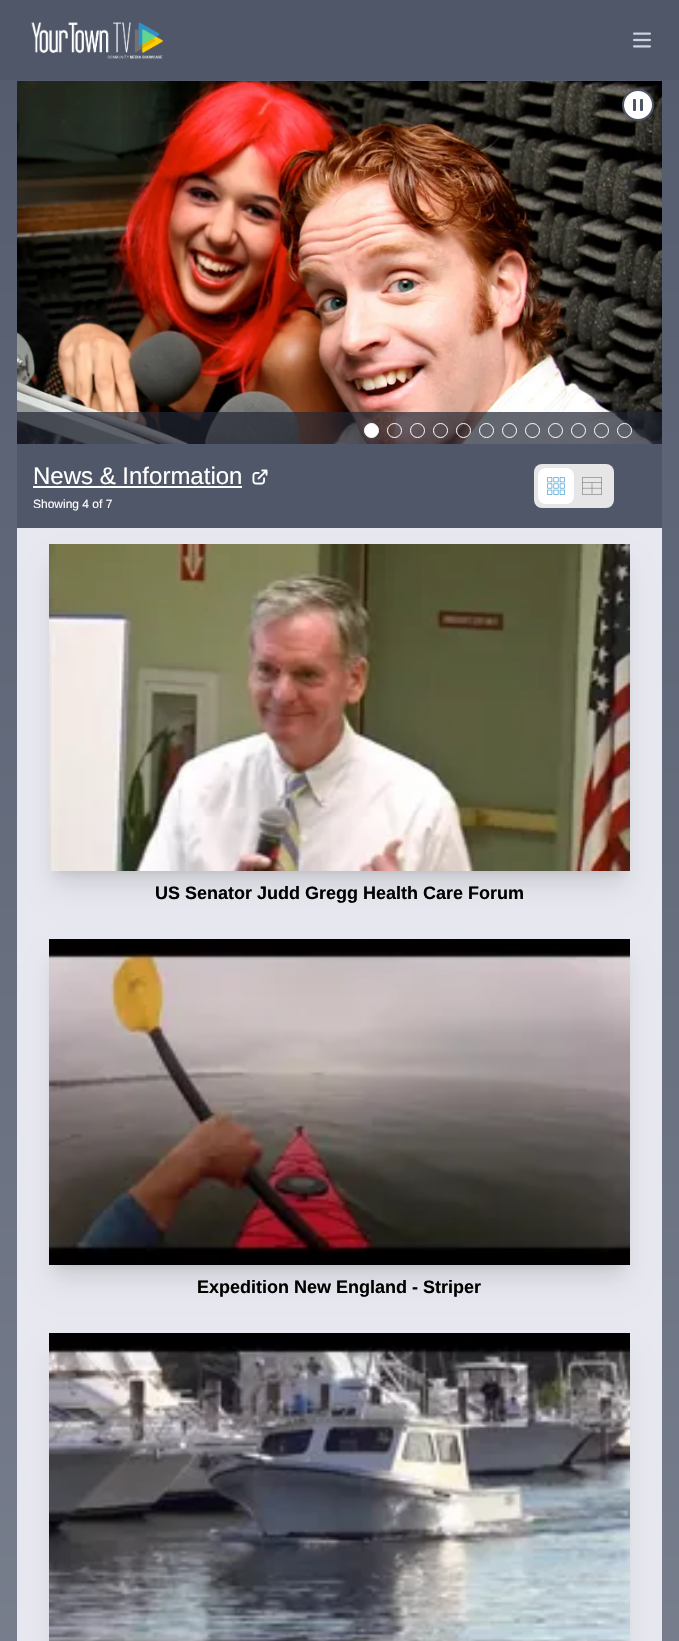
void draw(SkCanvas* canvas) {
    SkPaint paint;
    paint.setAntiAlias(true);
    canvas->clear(0xFF505768);
    paint.setColor(0xFF545C6E);
    canvas->drawRect(SkRect::MakeXYWH(0, 80, 679, 1), paint);
    canvas->drawImageRect(SkImages::DeferredFromEncodedData(SkData::MakeFromFileName("img1.png")), SkRect::MakeXYWH(31, 22, 133, 37), SkSamplingOptions());
    canvas->drawImageRect(SkImages::DeferredFromEncodedData(SkData::MakeFromFileName("img2.png")), SkRect::MakeXYWH(633, 32, 18, 16), SkSamplingOptions());
    {
        const SkColor colors[] = {0xFF545C6E, 0xFFFFFFFF};
        const float stops[] = {0, 1};
        const SkPoint ends[] = {{339, 81}, {340, 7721}};
        paint.setShader(SkGradientShader::MakeLinear(ends, colors, stops, 2, SkTileMode::kClamp));
        paint.setAlpha(255);
    }
    canvas->drawRect(SkRect::MakeXYWH(0, 81, 679, 1560), paint);
    paint.setShader(nullptr);
    paint.setColor(0xFFE8E8F0);
    canvas->drawRect(SkRect::MakeXYWH(17, 528, 645, 1113), paint);
    canvas->drawImageRect(SkImages::DeferredFromEncodedData(SkData::MakeFromFileName("img3.png")), SkRect::MakeXYWH(17, 81, 645, 363), SkSamplingOptions());
    paint.setColor(0xB3212532);
    canvas->drawRect(SkRect::MakeXYWH(17, 412, 645, 32), paint);
    paint.setColor(0xFF4B5563);
    canvas->drawCircle(638, 105, 16, paint);
    canvas->drawImageRect(SkImages::DeferredFromEncodedData(SkData::MakeFromFileName("img4.png")), SkRect::MakeXYWH(624, 91, 28, 28), SkSamplingOptions());
    paint.setColor(0xFFFFFFFF);
    canvas->drawCircle(371.5f, 430.5f, 7, paint);
    paint.setStyle(SkPaint::kStroke_Style);
    paint.setStrokeWidth(1);
    canvas->drawCircle(371.5f, 430.5f, 7, paint);
    canvas->drawCircle(394.5f, 430.5f, 7, paint);
    canvas->drawCircle(417.5f, 430.5f, 7, paint);
    canvas->drawCircle(440.5f, 430.5f, 7, paint);
    canvas->drawCircle(463.5f, 430.5f, 7, paint);
    canvas->drawCircle(486.5f, 430.5f, 7, paint);
    canvas->drawCircle(509.5f, 430.5f, 7, paint);
    canvas->drawCircle(532.5f, 430.5f, 7, paint);
    canvas->drawCircle(555.5f, 430.5f, 7, paint);
    canvas->drawCircle(578.5f, 430.5f, 7, paint);
    canvas->drawCircle(601.5f, 430.5f, 7, paint);
    canvas->drawCircle(624.5f, 430.5f, 7, paint);
    paint.setStyle(SkPaint::kFill_Style);
    paint.setColor(0xFF505768);
    canvas->drawRect(SkRect::MakeXYWH(17, 444, 645, 84), paint);
    SkFont font1(fontMgr->matchFamilyStyle("Liberation Sans", SkFontStyle::Normal()), 24);
    font1.setSubpixel(true);
    paint.setColor(0xFFFFFFFF);
    canvas->drawString("News & Information", 33, 484, font1, paint);
    canvas->drawRect(SkRect::MakeXYWH(33, 486, 209, 2), paint);
    canvas->drawImageRect(SkImages::DeferredFromEncodedData(SkData::MakeFromFileName("img5.png")), SkRect::MakeXYWH(252, 469, 16, 16), SkSamplingOptions());
    SkFont font2(fontMgr->matchFamilyStyle("Liberation Sans", SkFontStyle::Normal()), 12);
    font2.setSubpixel(true);
    canvas->drawString("Showing 4 of 7", 33, 508, font2, paint);
    paint.setColor(0xFFE6E6E6);
    canvas->drawRoundRect(SkRect::MakeXYWH(534, 464, 80, 44), 8, 8, paint);
    paint.setColor(0xFFFFFFFF);
    canvas->drawRoundRect(SkRect::MakeXYWH(538, 468, 36, 36), 8, 8, paint);
    canvas->drawImageRect(SkImages::DeferredFromEncodedData(SkData::MakeFromFileName("img6.png")), SkRect::MakeXYWH(547, 477, 18, 18), SkSamplingOptions());
    canvas->drawImageRect(SkImages::DeferredFromEncodedData(SkData::MakeFromFileName("img7.png")), SkRect::MakeXYWH(582, 477, 20, 18), SkSamplingOptions());
    paint.setColor(0x1A000000);
    paint.setMaskFilter(SkMaskFilter::MakeBlur(kNormal_SkBlurStyle, 5));
    canvas->drawRect(SkRect::MakeXYWH(55, 558, 569, 315), paint);
    paint.setMaskFilter(nullptr);
    paint.setMaskFilter(SkMaskFilter::MakeBlur(kNormal_SkBlurStyle, 12.5f));
    canvas->drawRect(SkRect::MakeXYWH(54, 569, 571, 317), paint);
    paint.setMaskFilter(nullptr);
    canvas->drawImageRect(SkImages::DeferredFromEncodedData(SkData::MakeFromFileName("img8.png")), SkRect::MakeXYWH(49, 544, 581, 327), SkSamplingOptions());
    SkFont font3(fontMgr->matchFamilyStyle("Liberation Sans", SkFontStyle::Bold()), 18);
    font3.setSubpixel(true);
    paint.setColor(0xFF000000);
    canvas->drawString("US Senator Judd Gregg Health Care Forum", 155, 899, font3, paint);
    paint.setColor(0x1A000000);
    paint.setMaskFilter(SkMaskFilter::MakeBlur(kNormal_SkBlurStyle, 5));
    canvas->drawRect(SkRect::MakeXYWH(55, 953, 569, 314), paint);
    paint.setMaskFilter(nullptr);
    paint.setMaskFilter(SkMaskFilter::MakeBlur(kNormal_SkBlurStyle, 12.5f));
    canvas->drawRect(SkRect::MakeXYWH(54, 964, 571, 316), paint);
    paint.setMaskFilter(nullptr);
    canvas->drawImageRect(SkImages::DeferredFromEncodedData(SkData::MakeFromFileName("img9.png")), SkRect::MakeXYWH(49, 939, 581, 326), SkSamplingOptions());
    paint.setColor(0xFF000000);
    canvas->drawString("Expedition New England - Striper", 197, 1293, font3, paint);
    paint.setColor(0x1A000000);
    paint.setMaskFilter(SkMaskFilter::MakeBlur(kNormal_SkBlurStyle, 12.5f));
    canvas->drawRect(SkRect::MakeXYWH(54, 1358, 571, 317), paint);
    paint.setMaskFilter(nullptr);
    canvas->drawImageRect(SkImages::DeferredFromEncodedData(SkData::MakeFromFileName("img10.png")), SkRect::MakeXYWH(49, 1333, 581, 308), SkSamplingOptions());
}
